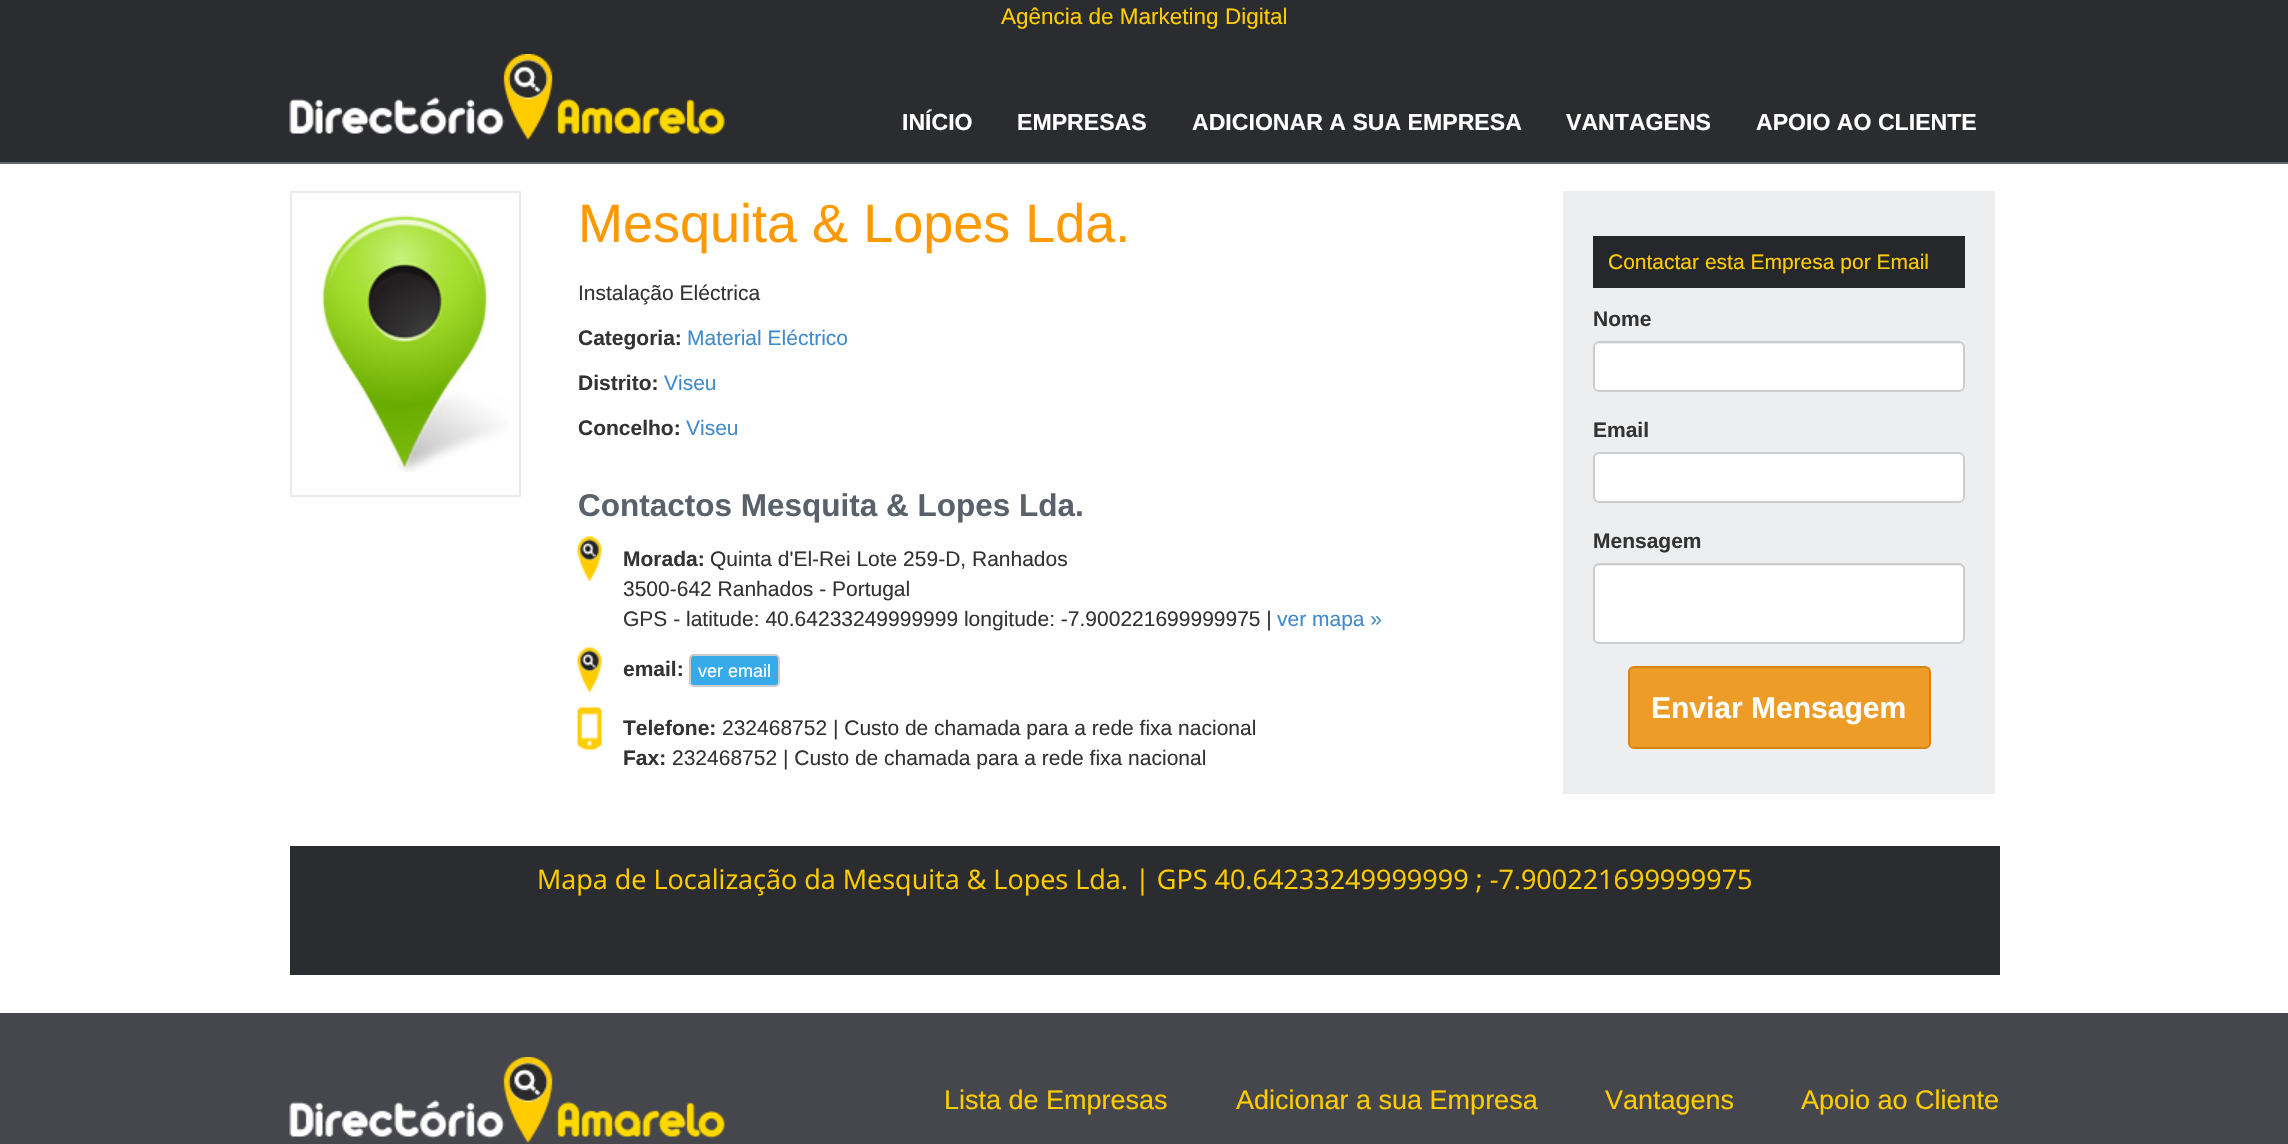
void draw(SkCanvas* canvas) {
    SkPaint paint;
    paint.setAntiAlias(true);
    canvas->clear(0xFFFFFFFF);
    paint.setColor(0xFF2B2C2F);
    canvas->drawRect(SkRect::MakeXYWH(0, 0, 2288, 162), paint);
    paint.setColor(0xFF656870);
    canvas->drawRect(SkRect::MakeXYWH(0, 162, 2288, 2), paint);
    SkFont font1(fontMgr->matchFamilyStyle("Liberation Sans", SkFontStyle::Normal()), 22.5f);
    font1.setSubpixel(true);
    paint.setColor(0xFFFFCC00);
    canvas->drawString("Agência de Marketing Digital", 1001, 24, font1, paint);
    canvas->drawImageRect(SkImages::DeferredFromEncodedData(SkData::MakeFromFileName("img1.png")), SkRect::MakeXYWH(289, 54, 436, 86), SkSamplingOptions());
    SkFont font2(fontMgr->matchFamilyStyle("Liberation Sans", SkFontStyle::Bold()), 23.1f);
    font2.setSubpixel(true);
    paint.setColor(0xFFFFFFFF);
    canvas->drawString("INÍCIO", 902, 130, font2, paint);
    canvas->drawString("EMPRESAS", 1017, 130, font2, paint);
    canvas->drawString("ADICIONAR A SUA EMPRESA", 1192, 130, font2, paint);
    canvas->drawString("VANTAGENS", 1566, 130, font2, paint);
    canvas->drawString("APOIO AO CLIENTE", 1756, 130, font2, paint);
    paint.setStyle(SkPaint::kStroke_Style);
    paint.setStrokeWidth(2);
    paint.setColor(0xFFE9EAED);
    canvas->drawRect(SkRect::MakeXYWH(291, 192, 229, 304), paint);
    canvas->drawImageRect(SkImages::DeferredFromEncodedData(SkData::MakeFromFileName("img2.png")), SkRect::MakeXYWH(317, 207, 191, 265), SkSamplingOptions());
    SkFont font3(fontMgr->matchFamilyStyle("Liberation Sans", SkFontStyle::Normal()), 54);
    font3.setSubpixel(true);
    paint.setStyle(SkPaint::kFill_Style);
    paint.setColor(0xFFFF9900);
    canvas->drawString("Mesquita & Lopes Lda.", 578, 242, font3, paint);
    SkFont font4(fontMgr->matchFamilyStyle("Liberation Sans", SkFontStyle::Normal()), 21);
    font4.setSubpixel(true);
    paint.setColor(0xFF333333);
    canvas->drawString("Instalação Eléctrica", 578, 300, font4, paint);
    SkFont font5(fontMgr->matchFamilyStyle("Liberation Sans", SkFontStyle::Bold()), 21);
    font5.setSubpixel(true);
    canvas->drawString("Categoria:", 578, 345, font5, paint);
    paint.setColor(0xFF428BCA);
    canvas->drawString("Material Eléctrico", 687, 345, font4, paint);
    paint.setColor(0xFF333333);
    canvas->drawString("Distrito:", 578, 390, font5, paint);
    paint.setColor(0xFF428BCA);
    canvas->drawString("Viseu", 664, 390, font4, paint);
    paint.setColor(0xFF333333);
    canvas->drawString("Concelho:", 578, 435, font5, paint);
    paint.setColor(0xFF428BCA);
    canvas->drawString("Viseu", 686, 435, font4, paint);
    SkFont font6(fontMgr->matchFamilyStyle("Liberation Sans", SkFontStyle::Bold()), 31.5f);
    font6.setSubpixel(true);
    paint.setColor(0xFF5B616A);
    canvas->drawString("Contactos Mesquita & Lopes Lda.", 578, 516, font6, paint);
    canvas->drawImageRect(SkImages::DeferredFromEncodedData(SkData::MakeFromFileName("img3.png")), SkRect::MakeXYWH(577, 536, 25, 46), SkSamplingOptions());
    paint.setColor(0xFF333333);
    canvas->drawString("Morada:", 623, 566, font5, paint);
    canvas->drawString("Quinta d'El-Rei Lote 259-D, Ranhados", 710, 566, font4, paint);
    canvas->drawString("3500-642 Ranhados - Portugal", 623, 596, font4, paint);
    canvas->drawString("GPS - latitude: 40.64233249999999 longitude: -7.900221699999975 |", 623, 626, font4, paint);
    paint.setColor(0xFF428BCA);
    canvas->drawString("ver mapa »", 1277, 626, font4, paint);
    canvas->drawImageRect(SkImages::DeferredFromEncodedData(SkData::MakeFromFileName("img3.png")), SkRect::MakeXYWH(577, 647, 25, 46), SkSamplingOptions());
    paint.setColor(0xFF333333);
    canvas->drawString("email:", 623, 676, font5, paint);
    paint.setColor(0xFF37ABEA);
    canvas->drawRoundRect(SkRect::MakeXYWH(690, 655, 89, 31), 4, 4, paint);
    paint.setStyle(SkPaint::kStroke_Style);
    paint.setColor(0xFFCCCCCC);
    canvas->drawRoundRect(SkRect::MakeXYWH(690, 655, 89, 31), 4, 4, paint);
    SkFont font7(fontMgr->matchFamilyStyle("Liberation Sans", SkFontStyle::Normal()), 18);
    font7.setSubpixel(true);
    paint.setStyle(SkPaint::kFill_Style);
    paint.setColor(0xFFFFFFFF);
    canvas->drawString("ver email", 698, 677, font7, paint);
    canvas->drawImageRect(SkImages::DeferredFromEncodedData(SkData::MakeFromFileName("img4.png")), SkRect::MakeXYWH(577, 707, 25, 43), SkSamplingOptions());
    paint.setColor(0xFF333333);
    canvas->drawString("Telefone:", 623, 735, font5, paint);
    canvas->drawString("232468752 | Custo de chamada para a rede fixa nacional", 722, 735, font4, paint);
    canvas->drawString("Fax:", 623, 765, font5, paint);
    canvas->drawString("232468752 | Custo de chamada para a rede fixa nacional", 672, 765, font4, paint);
    paint.setColor(0xFFEDEEEF);
    canvas->drawRect(SkRect::MakeXYWH(1563, 191, 432, 603), paint);
    paint.setColor(0xFF26272B);
    canvas->drawRect(SkRect::MakeXYWH(1593, 236, 372, 52), paint);
    paint.setColor(0xFFFFCC00);
    canvas->drawString("Contactar esta Empresa por Email", 1608, 269, font4, paint);
    paint.setColor(0xFF333333);
    canvas->drawString("Nome", 1593, 326, font5, paint);
    paint.setColor(0xFFFFFFFF);
    canvas->drawRoundRect(SkRect::MakeXYWH(1593, 341, 372, 51), 6, 6, paint);
    paint.setColor(0xFFECECEC);
    canvas->drawPath(SkPathBuilder().moveTo(1599, 344).lineTo(1959, 344).cubicTo(1961, 344, 1964, 346, 1964, 348).lineTo(1964, 347).cubicTo(1964, 344, 1962, 342, 1959, 342).lineTo(1600, 342).cubicTo(1598, 342, 1596, 344, 1595, 346).cubicTo(1596, 345, 1598, 344, 1599, 344).close().detach(), paint);
    paint.setStyle(SkPaint::kStroke_Style);
    paint.setColor(0xFFCCCCCC);
    canvas->drawRoundRect(SkRect::MakeXYWH(1594, 342, 370, 49), 5, 5, paint);
    paint.setStyle(SkPaint::kFill_Style);
    paint.setColor(0xFF333333);
    canvas->drawString("Email", 1593, 437, font5, paint);
    paint.setColor(0xFFFFFFFF);
    canvas->drawRoundRect(SkRect::MakeXYWH(1593, 452, 372, 51), 6, 6, paint);
    paint.setColor(0xFFECECEC);
    canvas->drawPath(SkPathBuilder().moveTo(1599, 454).lineTo(1959, 454).cubicTo(1961, 454, 1964, 457, 1964, 459).lineTo(1964, 458).cubicTo(1964, 455, 1962, 453, 1959, 453).lineTo(1600, 453).cubicTo(1598, 453, 1596, 454, 1595, 456).cubicTo(1596, 455, 1598, 454, 1599, 454).close().detach(), paint);
    paint.setStyle(SkPaint::kStroke_Style);
    paint.setColor(0xFFCCCCCC);
    canvas->drawRoundRect(SkRect::MakeXYWH(1594, 453, 370, 49), 5, 5, paint);
    paint.setStyle(SkPaint::kFill_Style);
    paint.setColor(0xFF333333);
    canvas->drawString("Mensagem", 1593, 548, font5, paint);
    paint.setColor(0xFFFFFFFF);
    canvas->drawRoundRect(SkRect::MakeXYWH(1593, 563, 372, 81), 6, 6, paint);
    paint.setColor(0xFFECECEC);
    canvas->drawPath(SkPathBuilder().moveTo(1599, 566).lineTo(1959, 566).cubicTo(1961, 566, 1964, 568, 1964, 570).lineTo(1964, 569).cubicTo(1964, 566, 1962, 564, 1959, 564).lineTo(1600, 564).cubicTo(1598, 564, 1596, 566, 1595, 568).cubicTo(1596, 567, 1598, 566, 1599, 566).close().detach(), paint);
    paint.setStyle(SkPaint::kStroke_Style);
    paint.setColor(0xFFCCCCCC);
    canvas->drawRoundRect(SkRect::MakeXYWH(1594, 564, 370, 79), 5, 5, paint);
    paint.setStyle(SkPaint::kFill_Style);
    paint.setColor(0xFFED9C28);
    canvas->drawRoundRect(SkRect::MakeXYWH(1629, 667, 301, 81), 5, 5, paint);
    paint.setStyle(SkPaint::kStroke_Style);
    paint.setColor(0xFFD58512);
    canvas->drawRoundRect(SkRect::MakeXYWH(1629, 667, 301, 81), 5, 5, paint);
    SkFont font8(fontMgr->matchFamilyStyle("Liberation Sans", SkFontStyle::Bold()), 30);
    font8.setSubpixel(true);
    paint.setStyle(SkPaint::kFill_Style);
    paint.setColor(0xFFFFFFFF);
    canvas->drawString("Enviar Mensagem", 1651, 718, font8, paint);
    paint.setColor(0xFF2B2C2F);
    canvas->drawRect(SkRect::MakeXYWH(290, 846, 1710, 129), paint);
    SkFont font9(fontMgr->matchFamilyStyle("Open Sans", SkFontStyle::Normal()), 27);
    font9.setSubpixel(true);
    paint.setColor(0xFFFFCC00);
    canvas->drawString("Mapa de Localização da Mesquita & Lopes Lda. | GPS 40.64233249999999 ; -7.900221699999975", 537, 889, font9, paint);
    paint.setColor(0xFF45474D);
    canvas->drawRect(SkRect::MakeXYWH(0, 1013, 2288, 131), paint);
    canvas->drawImageRect(SkImages::DeferredFromEncodedData(SkData::MakeFromFileName("img5.png")), SkRect::MakeXYWH(289, 1057, 436, 86), SkSamplingOptions());
    SkFont font10(fontMgr->matchFamilyStyle("Liberation Sans", SkFontStyle::Normal()), 27);
    font10.setSubpixel(true);
    paint.setColor(0xFFFFCC00);
    canvas->drawString("Lista de Empresas", 944, 1109, font10, paint);
    canvas->drawString("Adicionar a sua Empresa", 1236, 1109, font10, paint);
    canvas->drawString("Vantagens", 1605, 1109, font10, paint);
    canvas->drawString("Apoio ao Cliente", 1801, 1109, font10, paint);
}
